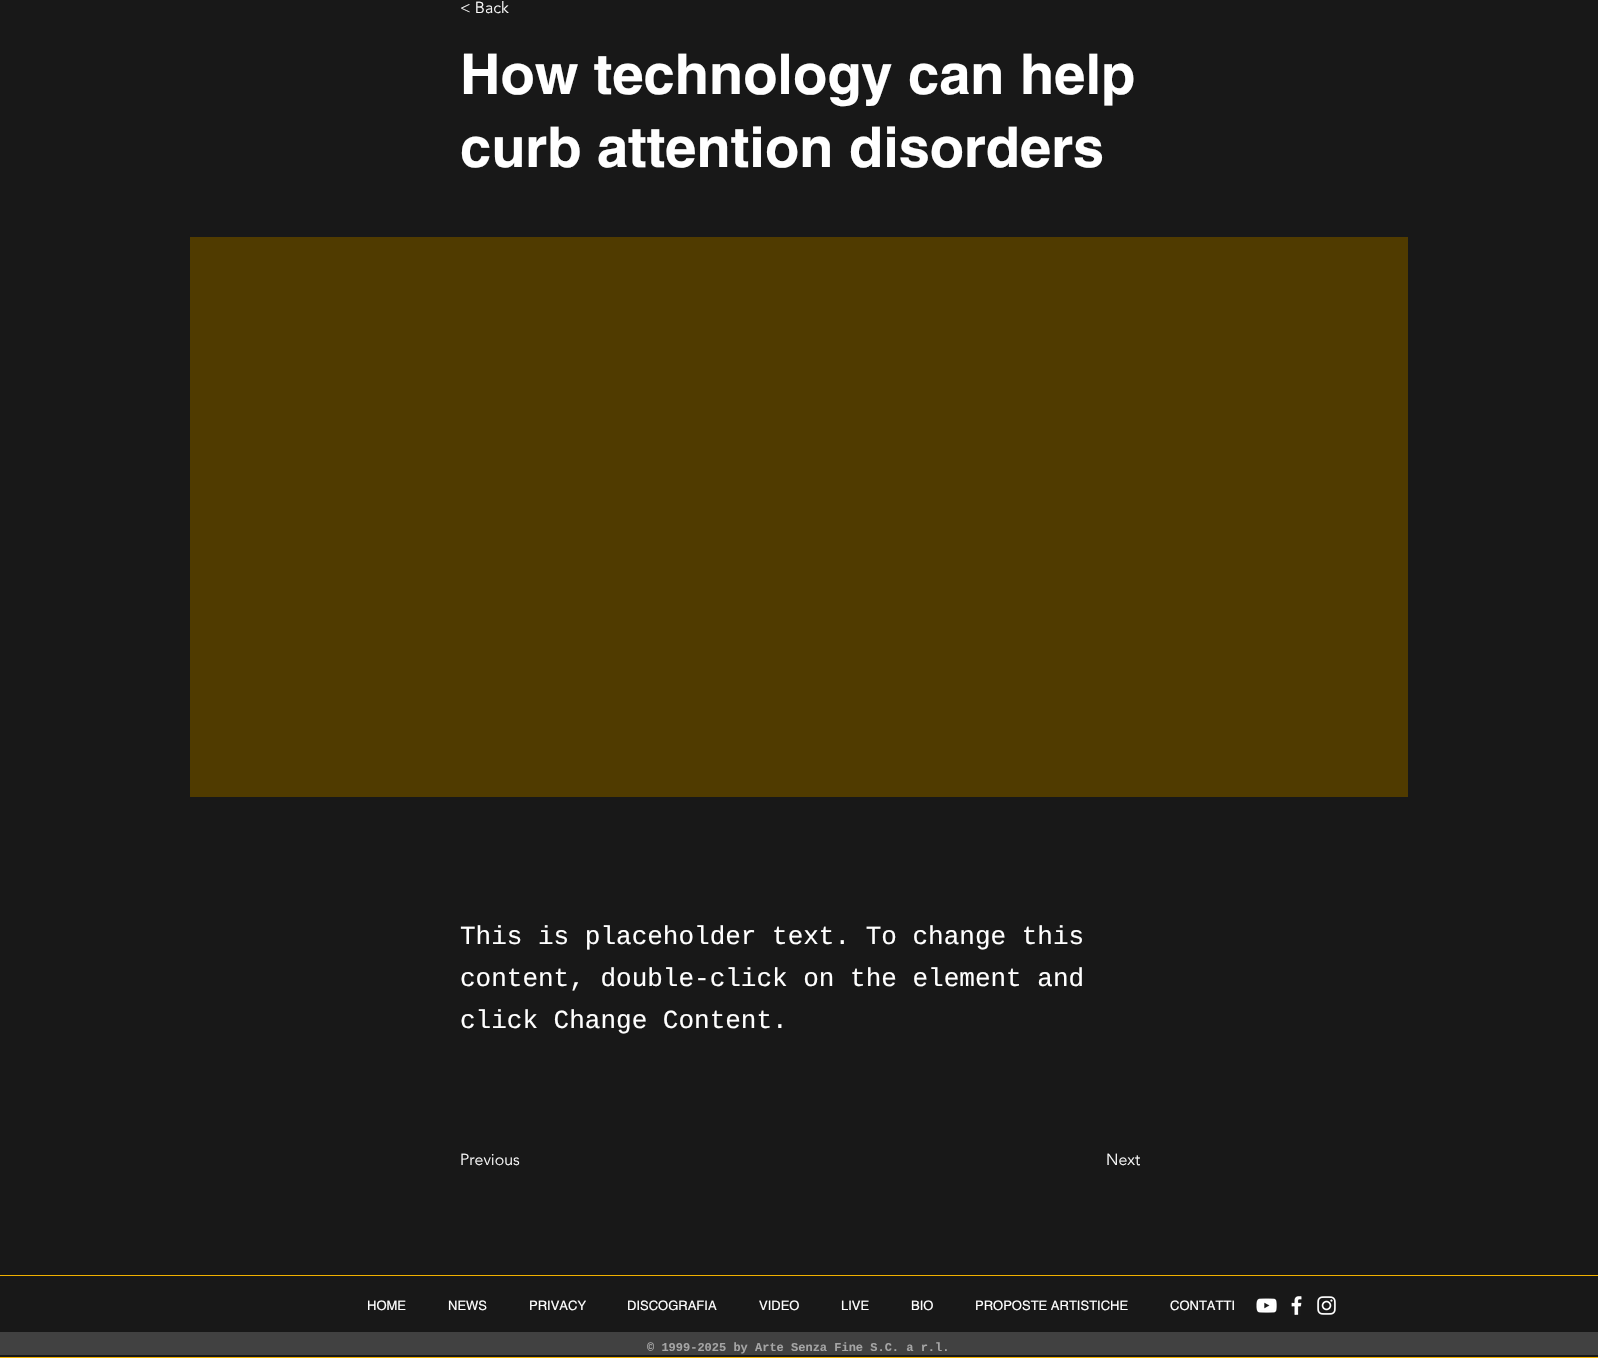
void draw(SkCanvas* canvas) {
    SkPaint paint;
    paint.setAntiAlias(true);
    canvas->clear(0xFF181818);
    SkFont font1(fontMgr->matchFamilyStyle("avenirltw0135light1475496", SkFontStyle(300, SkFontStyle::kNormal_Width, SkFontStyle::kUpright_Slant)), 16);
    font1.setSubpixel(true);
    paint.setColor(0xFFFFFFFF);
    canvas->drawString("< Back", 460, 13, font1, paint);
    SkFont font2(fontMgr->matchFamilyStyle("helvetica", SkFontStyle::Bold()), 56);
    font2.setSubpixel(true);
    canvas->drawString("How technology can help", 460, 94, font2, paint);
    canvas->drawString("curb attention disorders", 460, 167, font2, paint);
    paint.setColor(0xFF503B00);
    canvas->drawRect(SkRect::MakeXYWH(190, 237, 1218, 560), paint);
    SkFont font3(fontMgr->matchFamilyStyle("Liberation Mono", SkFontStyle::Normal()), 26);
    font3.setSubpixel(true);
    paint.setColor(0xFFFFFFFF);
    canvas->drawString("This is placeholder text. To change this", 460, 944, font3, paint);
    canvas->drawString("content, double-click on the element and", 460, 986, font3, paint);
    canvas->drawString("click Change Content.", 460, 1028, font3, paint);
    canvas->drawString("Previous", 460, 1165, font1, paint);
    canvas->drawString("Next", 1106, 1165, font1, paint);
    paint.setColor(0xFFF0B000);
    canvas->drawRect(SkRect::MakeXYWH(0, 1275, 1598, 1), paint);
    canvas->drawRect(SkRect::MakeXYWH(0, 1357, 1598, 1), paint);
    SkFont font4(fontMgr->matchFamilyStyle("helvetica", SkFontStyle::Normal()), 13);
    font4.setSubpixel(true);
    paint.setColor(0xFFFFFFFF);
    canvas->drawString("HOME", 367, 1310, font4, paint);
    canvas->drawString("NEWS", 448, 1310, font4, paint);
    canvas->drawString("PRIVACY", 529, 1310, font4, paint);
    canvas->drawString("DISCOGRAFIA", 627, 1310, font4, paint);
    canvas->drawString("VIDEO", 759, 1310, font4, paint);
    canvas->drawString("LIVE", 841, 1310, font4, paint);
    canvas->drawString("BIO", 911, 1310, font4, paint);
    canvas->drawString("PROPOSTE ARTISTICHE", 975, 1310, font4, paint);
    canvas->drawString("CONTATTI", 1170, 1310, font4, paint);
    canvas->drawImageRect(SkImages::DeferredFromEncodedData(SkData::MakeFromFileName("img1.png")), SkRect::MakeXYWH(1256, 1298, 21, 15), SkSamplingOptions());
    canvas->drawImageRect(SkImages::DeferredFromEncodedData(SkData::MakeFromFileName("img2.png")), SkRect::MakeXYWH(1291, 1296, 11, 19), SkSamplingOptions());
    canvas->drawImageRect(SkImages::DeferredFromEncodedData(SkData::MakeFromFileName("img3.png")), SkRect::MakeXYWH(1317, 1296, 19, 19), SkSamplingOptions());
    paint.setColor(0xFF414141);
    canvas->drawRect(SkRect::MakeXYWH(0, 1332, 1598, 23), paint);
    SkFont font5(fontMgr->matchFamilyStyle("Liberation Mono", SkFontStyle::Bold()), 12);
    font5.setSubpixel(true);
    paint.setColor(0xFFA5A5A5);
    canvas->drawString("© 1999-2025 by Arte Senza Fine S.C. a r.l.", 647, 1351, font5, paint);
}
